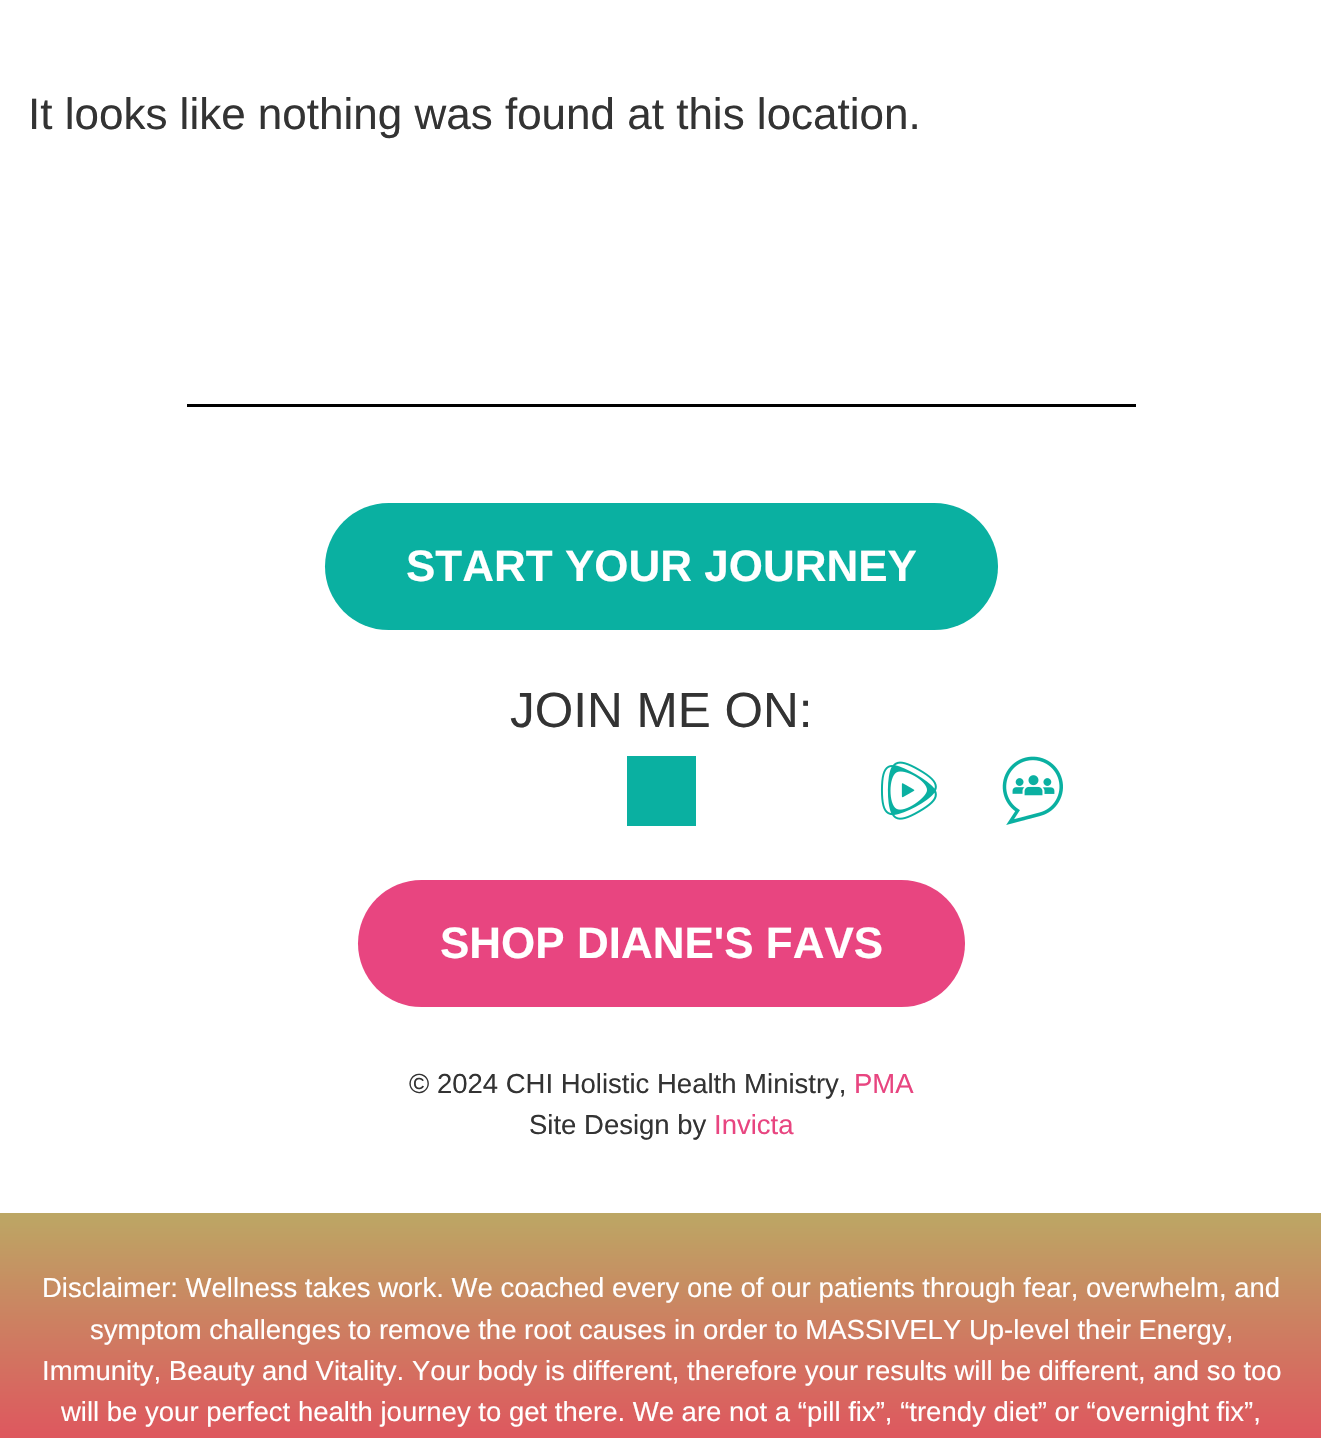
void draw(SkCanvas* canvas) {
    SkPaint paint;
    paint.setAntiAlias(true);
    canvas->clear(0xFFFFFFFF);
    SkFont font1(fontMgr->matchFamilyStyle("Liberation Sans", SkFontStyle::Normal()), 44);
    font1.setSubpixel(true);
    paint.setColor(0xFF333333);
    canvas->drawString("It looks like nothing was found at this location.", 28, 129, font1, paint);
    paint.setColor(0xFF000000);
    canvas->drawRect(SkRect::MakeXYWH(187, 404, 949, 3), paint);
    paint.setColor(0xFF0AB0A1);
    canvas->drawRoundRect(SkRect::MakeXYWH(325, 503, 673, 127), 63.5f, 63.5f, paint);
    SkFont font2(fontMgr->matchFamilyStyle("Liberation Sans", SkFontStyle::Bold()), 44);
    font2.setSubpixel(true);
    paint.setColor(0xFFFFFFFF);
    canvas->drawString("START YOUR JOURNEY", 406, 581, font2, paint);
    SkFont font3(fontMgr->matchFamilyStyle("Liberation Sans", SkFontStyle::Normal()), 49.5f);
    font3.setSubpixel(true);
    paint.setColor(0xFF333333);
    canvas->drawString("JOIN ME ON:", 510, 727, font3, paint);
    paint.setColor(0xFF0AB0A1);
    canvas->drawRect(SkRect::MakeXYWH(627, 756, 69, 70), paint);
    canvas->drawImageRect(SkImages::DeferredFromEncodedData(SkData::MakeFromFileName("img1.png")), SkRect::MakeXYWH(880, 761, 57, 59), SkSamplingOptions());
    canvas->drawImageRect(SkImages::DeferredFromEncodedData(SkData::MakeFromFileName("img2.png")), SkRect::MakeXYWH(1002, 756, 61, 69), SkSamplingOptions());
    paint.setColor(0xFFE84580);
    canvas->drawRoundRect(SkRect::MakeXYWH(358, 880, 607, 127), 63.5f, 63.5f, paint);
    paint.setColor(0xFFFFFFFF);
    canvas->drawString("SHOP DIANE'S FAVS", 440, 958, font2, paint);
    SkFont font4(fontMgr->matchFamilyStyle("Liberation Sans", SkFontStyle::Normal()), 27.5f);
    font4.setSubpixel(true);
    paint.setColor(0xFF333333);
    canvas->drawString("© 2024 CHI Holistic Health Ministry,", 409, 1093, font4, paint);
    paint.setColor(0xFFE84580);
    canvas->drawString("PMA", 854, 1093, font4, paint);
    paint.setColor(0xFF333333);
    canvas->drawString("Site Design by", 529, 1134, font4, paint);
    paint.setColor(0xFFE84580);
    canvas->drawString("Invicta", 714, 1134, font4, paint);
    {
        const SkColor colors[] = {0xFFBCA764, 0xFFF2295B};
        const float stops[] = {0, 1};
        const SkPoint ends[] = {{661, 1213}, {661, 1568}};
        paint.setShader(SkGradientShader::MakeLinear(ends, colors, stops, 2, SkTileMode::kClamp));
        paint.setAlpha(255);
    }
    canvas->drawRect(SkRect::MakeXYWH(0, 1213, 1321, 225), paint);
    paint.setShader(nullptr);
    paint.setColor(0xFFFFFFFF);
    canvas->drawString("Disclaimer: Wellness takes work. We coached every one of our patients through fear, overwhelm, and", 42, 1297, font4, paint);
    canvas->drawString("symptom challenges to remove the root causes in order to MASSIVELY Up-level their Energy,", 90, 1339, font4, paint);
    canvas->drawString("Immunity, Beauty and Vitality. Your body is different, therefore your results will be different, and so too", 42, 1380, font4, paint);
    canvas->drawString("will be your perfect health journey to get there. We are not a “pill fix”, “trendy diet” or “overnight fix”,", 61, 1421, font4, paint);
}
